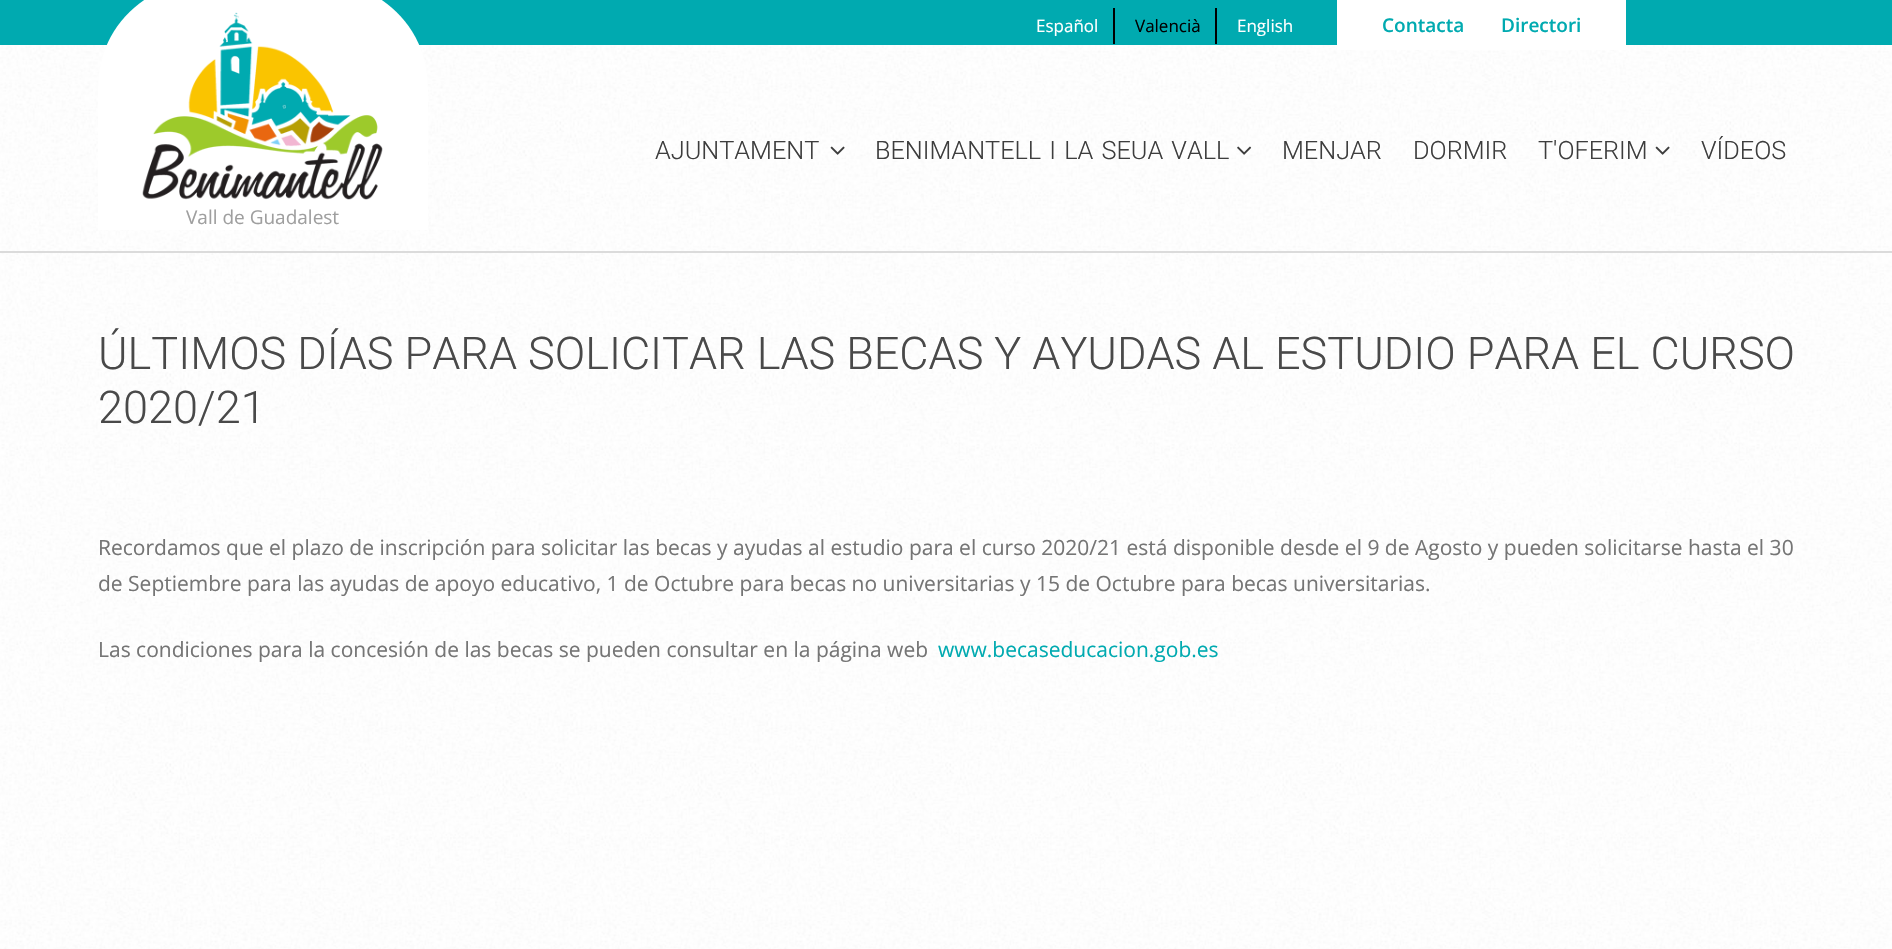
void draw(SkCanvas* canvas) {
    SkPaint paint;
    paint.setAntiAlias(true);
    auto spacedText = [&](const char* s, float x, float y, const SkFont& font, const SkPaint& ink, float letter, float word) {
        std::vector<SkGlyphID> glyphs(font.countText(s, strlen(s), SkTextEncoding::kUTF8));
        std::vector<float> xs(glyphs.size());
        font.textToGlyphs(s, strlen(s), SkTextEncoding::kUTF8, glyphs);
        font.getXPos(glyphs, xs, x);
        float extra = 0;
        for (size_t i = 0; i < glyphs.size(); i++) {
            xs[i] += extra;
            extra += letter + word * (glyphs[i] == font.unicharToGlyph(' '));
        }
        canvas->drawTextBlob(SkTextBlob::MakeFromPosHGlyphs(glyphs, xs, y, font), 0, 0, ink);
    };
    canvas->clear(0xFFFFFFFF);
    canvas->drawImageRect(SkImages::DeferredFromEncodedData(SkData::MakeFromFileName("img1.png")), SkRect::MakeXYWH(0, 45, 1892, 206), SkSamplingOptions());
    paint.setColor(0xFF00AAB0);
    canvas->drawRect(SkRect::MakeXYWH(0, 0, 1892, 45), paint);
    paint.setColor(0xFF000000);
    canvas->drawRect(SkRect::MakeXYWH(1113, 8, 2, 36), paint);
    SkFont font1(fontMgr->matchFamilyStyle("Open Sans", SkFontStyle::Normal()), 17);
    font1.setSubpixel(true);
    paint.setColor(0xFFFFFFFF);
    canvas->drawString("Español", 1036, 32, font1, paint);
    paint.setColor(0xFF000000);
    canvas->drawRect(SkRect::MakeXYWH(1215, 8, 2, 36), paint);
    canvas->drawString("Valencià", 1135, 32, font1, paint);
    paint.setColor(0xFFFFFFFF);
    canvas->drawString("English", 1237, 32, font1, paint);
    canvas->drawRect(SkRect::MakeXYWH(1337, 0, 289, 50), paint);
    SkFont font2(fontMgr->matchFamilyStyle("Open Sans", SkFontStyle(600, SkFontStyle::kNormal_Width, SkFontStyle::kUpright_Slant)), 19);
    font2.setSubpixel(true);
    paint.setColor(0xFF00AAB0);
    canvas->drawString("Contacta", 1382, 32, font2, paint);
    canvas->drawString("Directori", 1501, 32, font2, paint);
    paint.setColor(0xFFDBDBDB);
    canvas->drawRect(SkRect::MakeXYWH(0, 251, 1892, 2), paint);
    SkFont font3(fontMgr->matchFamilyStyle("Roboto", SkFontStyle(300, SkFontStyle::kNormal_Width, SkFontStyle::kUpright_Slant)), 25.25f);
    font3.setSubpixel(true);
    paint.setColor(0xFF3D3D3D);
    canvas->drawString("AJUNTAMENT", 655, 159, font3, paint);
    canvas->drawImageRect(SkImages::DeferredFromEncodedData(SkData::MakeFromFileName("img2.png")), SkRect::MakeXYWH(830, 146, 15, 9), SkSamplingOptions());
    spacedText("BENIMANTELL I LA SEUA VALL", 875, 159, font3, paint, 0, 2);
    canvas->drawImageRect(SkImages::DeferredFromEncodedData(SkData::MakeFromFileName("img3.png")), SkRect::MakeXYWH(1237, 146, 15, 9), SkSamplingOptions());
    canvas->drawString("MENJAR", 1282, 159, font3, paint);
    canvas->drawString("DORMIR", 1413, 159, font3, paint);
    canvas->drawString("T'OFERIM", 1538, 159, font3, paint);
    canvas->drawImageRect(SkImages::DeferredFromEncodedData(SkData::MakeFromFileName("img4.png")), SkRect::MakeXYWH(1655, 146, 15, 9), SkSamplingOptions());
    canvas->drawString("VÍDEOS", 1701, 159, font3, paint);
    paint.setColor(0xFFFFFFFF);
    canvas->drawPath(SkPathBuilder().moveTo(203, -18).lineTo(323, -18).cubicTo(381, -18, 428, 29, 428, 87).lineTo(428, 230).lineTo(98, 230).lineTo(98, 87).cubicTo(98, 29, 145, -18, 203, -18).close().detach(), paint);
    canvas->drawImageRect(SkImages::DeferredFromEncodedData(SkData::MakeFromFileName("img5.png")), SkRect::MakeXYWH(142, 12, 241, 188), SkSamplingOptions());
    SkFont font4(fontMgr->matchFamilyStyle("Open Sans", SkFontStyle::Normal()), 19);
    font4.setSubpixel(true);
    paint.setColor(0xFF9F9F9F);
    canvas->drawString("Vall de Guadalest", 186, 224, font4, paint);
    canvas->drawImageRect(SkImages::DeferredFromEncodedData(SkData::MakeFromFileName("img6.png")), SkRect::MakeXYWH(0, 253, 1892, 696), SkSamplingOptions());
    SkFont font5(fontMgr->matchFamilyStyle("Roboto", SkFontStyle(300, SkFontStyle::kNormal_Width, SkFontStyle::kUpright_Slant)), 45);
    font5.setSubpixel(true);
    paint.setColor(0xFF494949);
    canvas->drawString("ÚLTIMOS DÍAS PARA SOLICITAR LAS BECAS Y AYUDAS AL ESTUDIO PARA EL CURSO", 98, 369, font5, paint);
    canvas->drawString("2020/21", 98, 423, font5, paint);
    SkFont font6(fontMgr->matchFamilyStyle("Open Sans", SkFontStyle::Normal()), 21);
    font6.setSubpixel(true);
    paint.setColor(0xFF757575);
    canvas->drawString("Recordamos que el plazo de inscripción para solicitar las becas y ayudas al estudio para el curso 2020/21 está disponible desde el 9 de Agosto y pueden solicitarse hasta el 30", 98, 555, font6, paint);
    canvas->drawString("de Septiembre para las ayudas de apoyo educativo, 1 de Octubre para becas no universitarias y 15 de Octubre para becas universitarias.", 98, 591, font6, paint);
    canvas->drawString("Las condiciones para la concesión de las becas se pueden consultar en la página web", 98, 657, font6, paint);
    paint.setColor(0xFF00AAB0);
    canvas->drawString("www.becaseducacion.gob.es", 938, 657, font6, paint);
}
